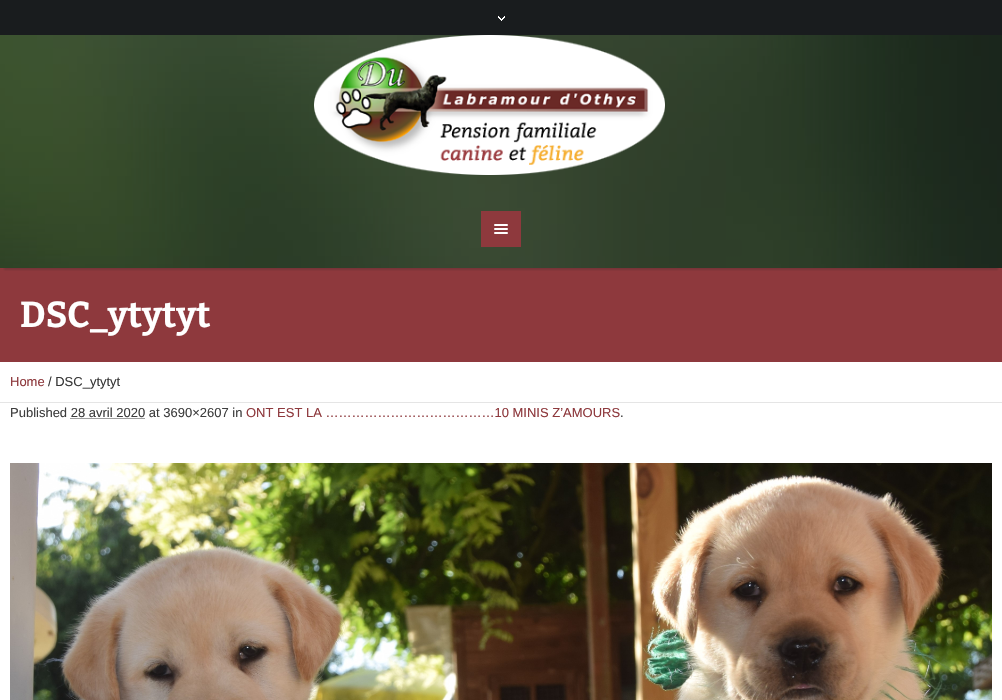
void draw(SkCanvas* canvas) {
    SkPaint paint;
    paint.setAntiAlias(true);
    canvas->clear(0xFFFFFFFF);
    canvas->drawImageRect(SkImages::DeferredFromEncodedData(SkData::MakeFromFileName("img1.png")), SkRect::MakeXYWH(0, 35, 1002, 233), SkSamplingOptions());
    paint.setColor(0xFF8E393D);
    canvas->drawRect(SkRect::MakeXYWH(0, 268, 1002, 94), paint);
    canvas->save();
    canvas->clipRect(SkRect::MakeXYWH(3, 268, 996, 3));
    paint.setColor(0x33191C1E);
    paint.setMaskFilter(SkMaskFilter::MakeBlur(kNormal_SkBlurStyle, 1));
    canvas->drawRect(SkRect::MakeXYWH(4, 10, 994, 260), paint);
    paint.setMaskFilter(nullptr);
    canvas->restore();
    paint.setColor(0xFF191C1E);
    canvas->drawRect(SkRect::MakeXYWH(0, 0, 1002, 35), paint);
    paint.setColor(0xFFFFFFFF);
    canvas->drawRect(SkRect::MakeXYWH(501, 19, 1, 2), paint);
    canvas->drawRect(SkRect::MakeXYWH(504, 16, 1, 2), paint);
    canvas->drawRect(SkRect::MakeXYWH(498, 16, 1, 2), paint);
    canvas->drawRect(SkRect::MakeXYWH(503, 17, 1, 2), paint);
    canvas->drawRect(SkRect::MakeXYWH(499, 17, 1, 2), paint);
    canvas->drawRect(SkRect::MakeXYWH(502, 18, 1, 2), paint);
    canvas->drawRect(SkRect::MakeXYWH(500, 18, 1, 2), paint);
    paint.setColor(0xB3191C1E);
    canvas->drawRect(SkRect::MakeXYWH(0, 35, 1002, 156), paint);
    canvas->drawImageRect(SkImages::DeferredFromEncodedData(SkData::MakeFromFileName("img2.png")), SkRect::MakeXYWH(314, 35, 351, 140), SkSamplingOptions());
    canvas->drawRect(SkRect::MakeXYWH(0, 191, 1002, 77), paint);
    paint.setColor(0xFF8E393D);
    canvas->drawRect(SkRect::MakeXYWH(481, 211, 40, 36), paint);
    canvas->drawImageRect(SkImages::DeferredFromEncodedData(SkData::MakeFromFileName("img3.png")), SkRect::MakeXYWH(494, 224, 14, 10), SkSamplingOptions());
    SkFont font1(fontMgr->matchFamilyStyle("Bitter", SkFontStyle::Bold()), 36);
    font1.setSubpixel(true);
    paint.setColor(0xFFFFFFFF);
    canvas->drawString("DSC_ytytyt", 20, 327, font1, paint);
    paint.setColor(0xFFE5E5E5);
    canvas->drawRect(SkRect::MakeXYWH(0, 402, 1002, 1), paint);
    SkFont font2(fontMgr->matchFamilyStyle("Liberation Sans", SkFontStyle::Normal()), 13);
    font2.setSubpixel(true);
    paint.setColor(0xFF8E393D);
    canvas->drawString("Home", 10, 386, font2, paint);
    paint.setColor(0xFF373737);
    canvas->drawString("/ DSC_ytytyt", 48, 386, font2, paint);
    paint.setColor(0xFF3D3D3D);
    canvas->drawString("Published 28 avril 2020 at 3690×2607 in", 10, 417, font2, paint);
    paint.setColor(0xFF8E393D);
    canvas->drawString("ONT EST LA …………………………………10 MINIS Z’AMOURS", 246, 417, font2, paint);
    paint.setColor(0xFF3D3D3D);
    canvas->drawString(".", 620, 417, font2, paint);
    paint.setStyle(SkPaint::kStroke_Style);
    paint.setStrokeWidth(1);
    paint.setPathEffect(SkDashPathEffect::Make({{1, 1}}, 0));
    canvas->drawPath(SkPathBuilder().moveTo(70.5f, 418.5f).lineTo(145, 418.5f).detach(), paint);
    paint.setPathEffect(nullptr);
    canvas->drawImageRect(SkImages::DeferredFromEncodedData(SkData::MakeFromFileName("img4.png")), SkRect::MakeXYWH(10, 463, 982, 237), SkSamplingOptions());
}
